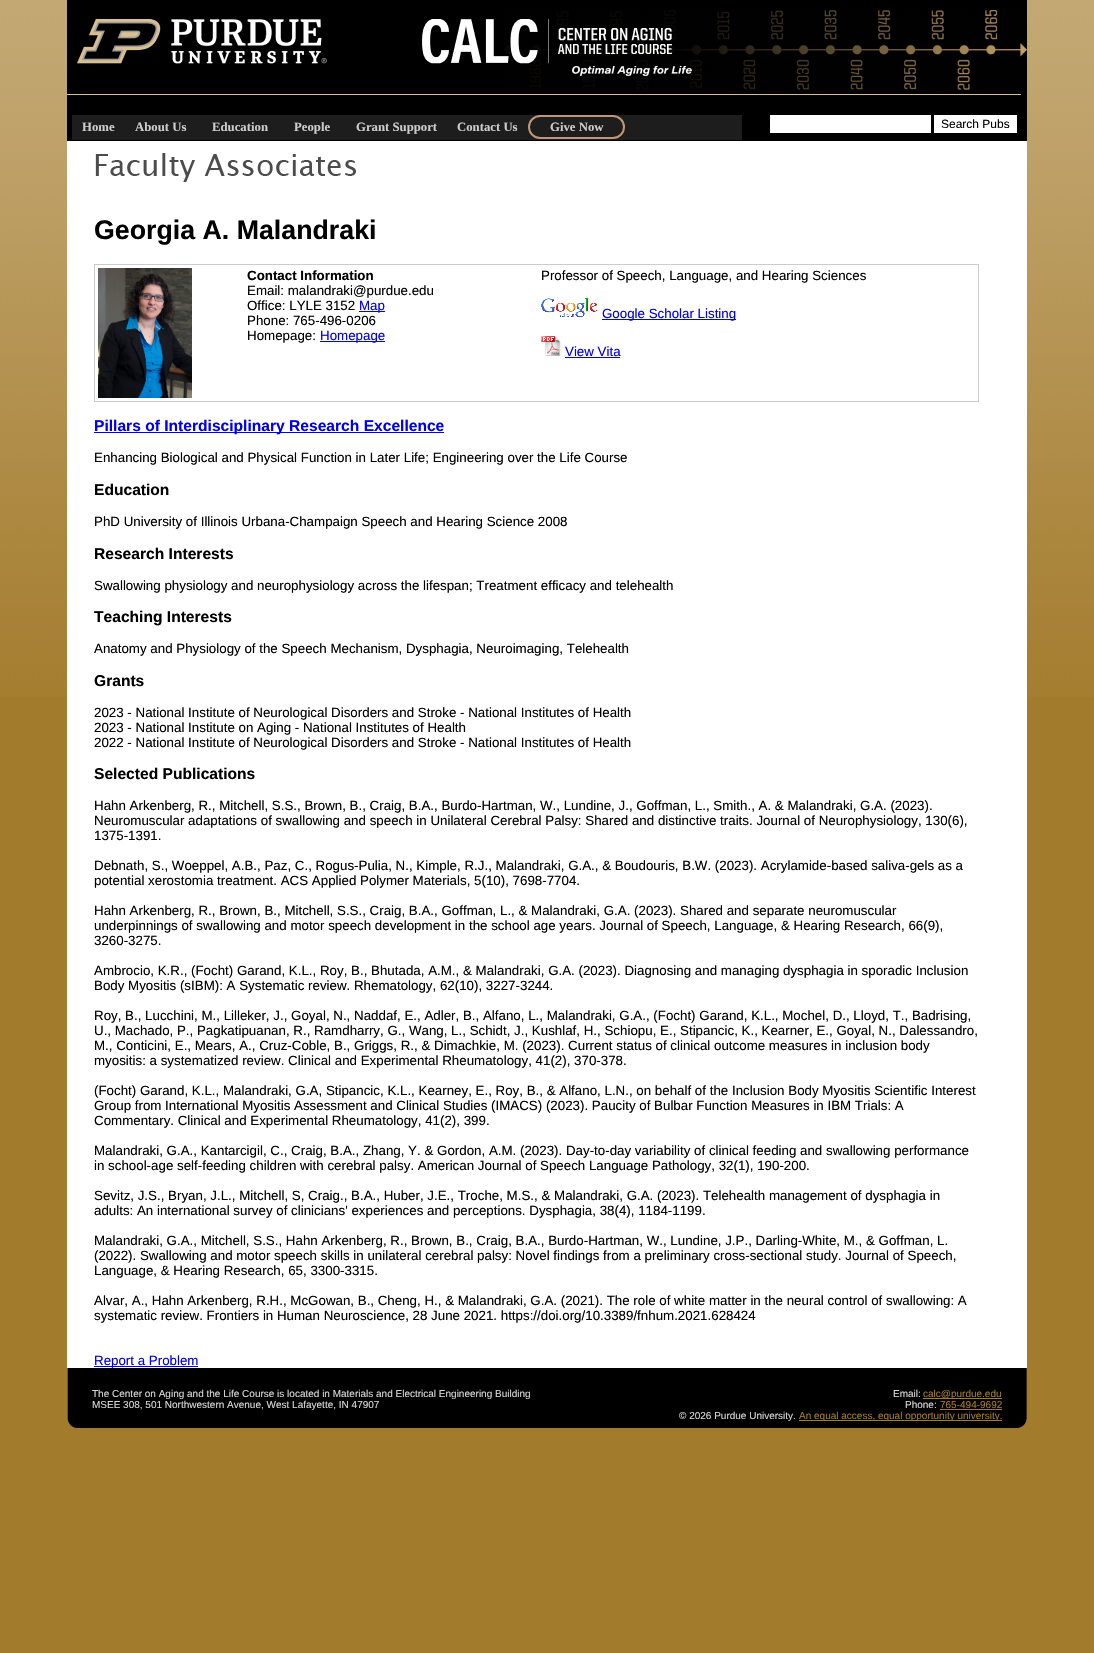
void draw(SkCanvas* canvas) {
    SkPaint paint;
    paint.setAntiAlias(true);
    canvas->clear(0xFFA37B2C);
    canvas->drawImageRect(SkImages::DeferredFromEncodedData(SkData::MakeFromFileName("img1.png")), SkRect::MakeXYWH(0, 0, 1094, 697), SkSamplingOptions());
    canvas->drawImageRect(SkImages::DeferredFromEncodedData(SkData::MakeFromFileName("img2.png")), SkRect::MakeXYWH(67, 0, 960, 141), SkSamplingOptions());
    paint.setColor(0xFF1E1D1D);
    canvas->drawRect(SkRect::MakeXYWH(72, 115, 670, 25), paint);
    SkFont font1(fontMgr->matchFamilyStyle("Liberation Serif", SkFontStyle::Bold()), 12.75f);
    font1.setSubpixel(true);
    paint.setColor(0xFFCCCCCC);
    canvas->drawString("Home", 82, 131, font1, paint);
    canvas->drawString("About Us", 135, 131, font1, paint);
    canvas->drawString("Education", 212, 131, font1, paint);
    canvas->drawString("People", 294, 131, font1, paint);
    canvas->drawString("Grant Support", 356, 131, font1, paint);
    canvas->drawString("Contact Us", 457, 131, font1, paint);
    paint.setStyle(SkPaint::kStroke_Style);
    paint.setStrokeWidth(2);
    paint.setColor(0xFFC19674);
    canvas->drawRoundRect(SkRect::MakeXYWH(529, 116, 95, 22), 11, 11, paint);
    paint.setStyle(SkPaint::kFill_Style);
    paint.setColor(0xFFCCCCCC);
    canvas->drawString("Give Now", 550, 131, font1, paint);
    paint.setColor(0xFFFFFFFF);
    canvas->drawRect(SkRect::MakeXYWH(770, 115, 161, 18), paint);
    canvas->drawRect(SkRect::MakeXYWH(934, 115, 83, 18), paint);
    SkFont font2(fontMgr->matchFamilyStyle("Liberation Sans", SkFontStyle::Normal()), 12);
    font2.setSubpixel(true);
    paint.setColor(0xFF000000);
    canvas->drawString("Search Pubs", 941, 128, font2, paint);
    paint.setColor(0xFFFFFFFF);
    canvas->drawRect(SkRect::MakeXYWH(67, 141, 960, 1227), paint);
    canvas->drawImageRect(SkImages::DeferredFromEncodedData(SkData::MakeFromFileName("img3.png")), SkRect::MakeXYWH(95, 153, 261, 29), SkSamplingOptions());
    SkFont font3(fontMgr->matchFamilyStyle("Liberation Sans", SkFontStyle::Bold()), 26.75f);
    font3.setSubpixel(true);
    paint.setColor(0xFF000000);
    canvas->drawString("Georgia A. Malandraki", 94, 239, font3, paint);
    paint.setStyle(SkPaint::kStroke_Style);
    paint.setStrokeWidth(1);
    paint.setColor(0xFFCCCCCC);
    canvas->drawRect(SkRect::MakeXYWH(94.5f, 264.5f, 884, 137), paint);
    canvas->drawImageRect(SkImages::DeferredFromEncodedData(SkData::MakeFromFileName("img4.png")), SkRect::MakeXYWH(98, 268, 94, 130), SkSamplingOptions());
    SkFont font4(fontMgr->matchFamilyStyle("Liberation Sans", SkFontStyle::Bold()), 13.33f);
    font4.setSubpixel(true);
    paint.setStyle(SkPaint::kFill_Style);
    paint.setColor(0xFF000000);
    canvas->drawString("Contact Information", 247, 280, font4, paint);
    SkFont font5(fontMgr->matchFamilyStyle("Liberation Sans", SkFontStyle::Normal()), 13.33f);
    font5.setSubpixel(true);
    canvas->drawString("Email: malandraki@purdue.edu", 247, 295, font5, paint);
    canvas->drawString("Office: LYLE 3152", 247, 310, font5, paint);
    paint.setColor(0xFF0000EE);
    canvas->drawRect(SkRect::MakeXYWH(359, 311, 26, 1), paint);
    canvas->drawString("Map", 359, 310, font5, paint);
    paint.setColor(0xFF000000);
    canvas->drawString("Phone: 765-496-0206", 247, 325, font5, paint);
    canvas->drawString("Homepage:", 247, 340, font5, paint);
    paint.setColor(0xFF0000EE);
    canvas->drawRect(SkRect::MakeXYWH(320, 341, 65, 1), paint);
    canvas->drawString("Homepage", 320, 340, font5, paint);
    paint.setColor(0xFF000000);
    canvas->drawString("Professor of Speech, Language, and Hearing Sciences", 541, 280, font5, paint);
    canvas->drawImageRect(SkImages::DeferredFromEncodedData(SkData::MakeFromFileName("img5.png")), SkRect::MakeXYWH(541, 298, 57, 20), SkSamplingOptions());
    paint.setColor(0xFF0000EE);
    canvas->drawRect(SkRect::MakeXYWH(602, 319, 134, 1), paint);
    canvas->drawString("Google Scholar Listing", 602, 318, font5, paint);
    canvas->drawImageRect(SkImages::DeferredFromEncodedData(SkData::MakeFromFileName("img6.png")), SkRect::MakeXYWH(541, 336, 20, 20), SkSamplingOptions());
    canvas->drawString("View Vita", 565, 356, font5, paint);
    canvas->drawRect(SkRect::MakeXYWH(565, 357, 55, 1), paint);
    canvas->drawRect(SkRect::MakeXYWH(94, 432, 350, 1), paint);
    SkFont font6(fontMgr->matchFamilyStyle("Liberation Sans", SkFontStyle::Bold()), 15.6f);
    font6.setSubpixel(true);
    canvas->drawString("Pillars of Interdisciplinary Research Excellence", 94, 431, font6, paint);
    paint.setColor(0xFF000000);
    canvas->drawString("Enhancing Biological and Physical Function in Later Life; Engineering over the Life Course", 94, 462, font5, paint);
    canvas->drawString("Education", 94, 495, font6, paint);
    canvas->drawString("PhD University of Illinois Urbana-Champaign Speech and Hearing Science 2008", 94, 526, font5, paint);
    canvas->drawString("Research Interests", 94, 559, font6, paint);
    canvas->drawString("Swallowing physiology and neurophysiology across the lifespan; Treatment efficacy and telehealth", 94, 590, font5, paint);
    canvas->drawString("Teaching Interests", 94, 622, font6, paint);
    canvas->drawString("Anatomy and Physiology of the Speech Mechanism, Dysphagia, Neuroimaging, Telehealth", 94, 653, font5, paint);
    canvas->drawString("Grants", 94, 686, font6, paint);
    canvas->drawString("2023 - National Institute of Neurological Disorders and Stroke - National Institutes of Health", 94, 717, font5, paint);
    canvas->drawString("2023 - National Institute on Aging - National Institutes of Health", 94, 732, font5, paint);
    canvas->drawString("2022 - National Institute of Neurological Disorders and Stroke - National Institutes of Health", 94, 747, font5, paint);
    canvas->drawString("Selected Publications", 94, 779, font6, paint);
    canvas->drawString("Hahn Arkenberg, R., Mitchell, S.S., Brown, B., Craig, B.A., Burdo-Hartman, W., Lundine, J., Goffman, L., Smith., A. & Malandraki, G.A. (2023).", 94, 810, font5, paint);
    canvas->drawString("Neuromuscular adaptations of swallowing and speech in Unilateral Cerebral Palsy: Shared and distinctive traits. Journal of Neurophysiology, 130(6),", 94, 825, font5, paint);
    canvas->drawString("1375-1391.", 94, 840, font5, paint);
    canvas->drawString("Debnath, S., Woeppel, A.B., Paz, C., Rogus-Pulia, N., Kimple, R.J., Malandraki, G.A., & Boudouris, B.W. (2023). Acrylamide-based saliva-gels as a", 94, 870, font5, paint);
    canvas->drawString("potential xerostomia treatment. ACS Applied Polymer Materials, 5(10), 7698-7704.", 94, 885, font5, paint);
    canvas->drawString("Hahn Arkenberg, R., Brown, B., Mitchell, S.S., Craig, B.A., Goffman, L., & Malandraki, G.A. (2023). Shared and separate neuromuscular", 94, 915, font5, paint);
    canvas->drawString("underpinnings of swallowing and motor speech development in the school age years. Journal of Speech, Language, & Hearing Research, 66(9),", 94, 930, font5, paint);
    canvas->drawString("3260-3275.", 94, 945, font5, paint);
    canvas->drawString("Ambrocio, K.R., (Focht) Garand, K.L., Roy, B., Bhutada, A.M., & Malandraki, G.A. (2023). Diagnosing and managing dysphagia in sporadic Inclusion", 94, 975, font5, paint);
    canvas->drawString("Body Myositis (sIBM): A Systematic review. Rhematology, 62(10), 3227-3244.", 94, 990, font5, paint);
    canvas->drawString("Roy, B., Lucchini, M., Lilleker, J., Goyal, N., Naddaf, E., Adler, B., Alfano, L., Malandraki, G.A., (Focht) Garand, K.L., Mochel, D., Lloyd, T., Badrising,", 94, 1020, font5, paint);
    canvas->drawString("U., Machado, P., Pagkatipuanan, R., Ramdharry, G., Wang, L., Schidt, J., Kushlaf, H., Schiopu, E., Stipancic, K., Kearner, E., Goyal, N., Dalessandro,", 94, 1035, font5, paint);
    canvas->drawString("M., Conticini, E., Mears, A., Cruz-Coble, B., Griggs, R., & Dimachkie, M. (2023). Current status of clinical outcome measures in inclusion body", 94, 1050, font5, paint);
    canvas->drawString("myositis: a systematized review. Clinical and Experimental Rheumatology, 41(2), 370-378.", 94, 1065, font5, paint);
    canvas->drawString("(Focht) Garand, K.L., Malandraki, G.A, Stipancic, K.L., Kearney, E., Roy, B., & Alfano, L.N., on behalf of the Inclusion Body Myositis Scientific Interest", 94, 1095, font5, paint);
    canvas->drawString("Group from International Myositis Assessment and Clinical Studies (IMACS) (2023). Paucity of Bulbar Function Measures in IBM Trials: A", 94, 1110, font5, paint);
    canvas->drawString("Commentary. Clinical and Experimental Rheumatology, 41(2), 399.", 94, 1125, font5, paint);
    canvas->drawString("Malandraki, G.A., Kantarcigil, C., Craig, B.A., Zhang, Y. & Gordon, A.M. (2023). Day-to-day variability of clinical feeding and swallowing performance", 94, 1155, font5, paint);
    canvas->drawString("in school-age self-feeding children with cerebral palsy. American Journal of Speech Language Pathology, 32(1), 190-200.", 94, 1170, font5, paint);
    canvas->drawString("Sevitz, J.S., Bryan, J.L., Mitchell, S, Craig., B.A., Huber, J.E., Troche, M.S., & Malandraki, G.A. (2023). Telehealth management of dysphagia in", 94, 1200, font5, paint);
    canvas->drawString("adults: An international survey of clinicians' experiences and perceptions. Dysphagia, 38(4), 1184-1199.", 94, 1215, font5, paint);
    canvas->drawString("Malandraki, G.A., Mitchell, S.S., Hahn Arkenberg, R., Brown, B., Craig, B.A., Burdo-Hartman, W., Lundine, J.P., Darling-White, M., & Goffman, L.", 94, 1245, font5, paint);
    canvas->drawString("(2022). Swallowing and motor speech skills in unilateral cerebral palsy: Novel findings from a preliminary cross-sectional study. Journal of Speech,", 94, 1260, font5, paint);
    canvas->drawString("Language, & Hearing Research, 65, 3300-3315.", 94, 1275, font5, paint);
    canvas->drawString("Alvar, A., Hahn Arkenberg, R.H., McGowan, B., Cheng, H., & Malandraki, G.A. (2021). The role of white matter in the neural control of swallowing: A", 94, 1305, font5, paint);
    canvas->drawString("systematic review. Frontiers in Human Neuroscience, 28 June 2021. https://doi.org/10.3389/fnhum.2021.628424", 94, 1320, font5, paint);
    paint.setColor(0xFF0000EE);
    canvas->drawRect(SkRect::MakeXYWH(94, 1366, 104, 1), paint);
    canvas->drawString("Report a Problem", 94, 1365, font5, paint);
    canvas->drawImageRect(SkImages::DeferredFromEncodedData(SkData::MakeFromFileName("img7.png")), SkRect::MakeXYWH(67, 1368, 960, 60), SkSamplingOptions());
    SkFont font7(fontMgr->matchFamilyStyle("Liberation Sans", SkFontStyle::Normal()), 10);
    font7.setSubpixel(true);
    paint.setColor(0xFFD8D8D8);
    canvas->drawString("The Center on Aging and the Life Course is located in Materials and Electrical Engineering Building", 92, 1397, font7, paint);
    canvas->drawString("MSEE 308, 501 Northwestern Avenue, West Lafayette, IN 47907", 92, 1408, font7, paint);
    canvas->drawString("Email:", 893, 1397, font7, paint);
    paint.setColor(0xFFA37B2C);
    canvas->drawRect(SkRect::MakeXYWH(923, 1398, 79, 1), paint);
    canvas->drawString("calc@purdue.edu", 923, 1397, font7, paint);
    paint.setColor(0xFFD8D8D8);
    canvas->drawString("Phone:", 905, 1408, font7, paint);
    paint.setColor(0xFFA37B2C);
    canvas->drawString("765-494-9692", 940, 1408, font7, paint);
    canvas->drawRect(SkRect::MakeXYWH(940, 1409, 62, 1), paint);
    paint.setColor(0xFFD8D8D8);
    canvas->drawString("© 2026 Purdue University.", 679, 1419, font7, paint);
    paint.setColor(0xFFA37B2C);
    canvas->drawRect(SkRect::MakeXYWH(799, 1420, 203, 1), paint);
    canvas->drawString("An equal access, equal opportunity university.", 799, 1419, font7, paint);
}
